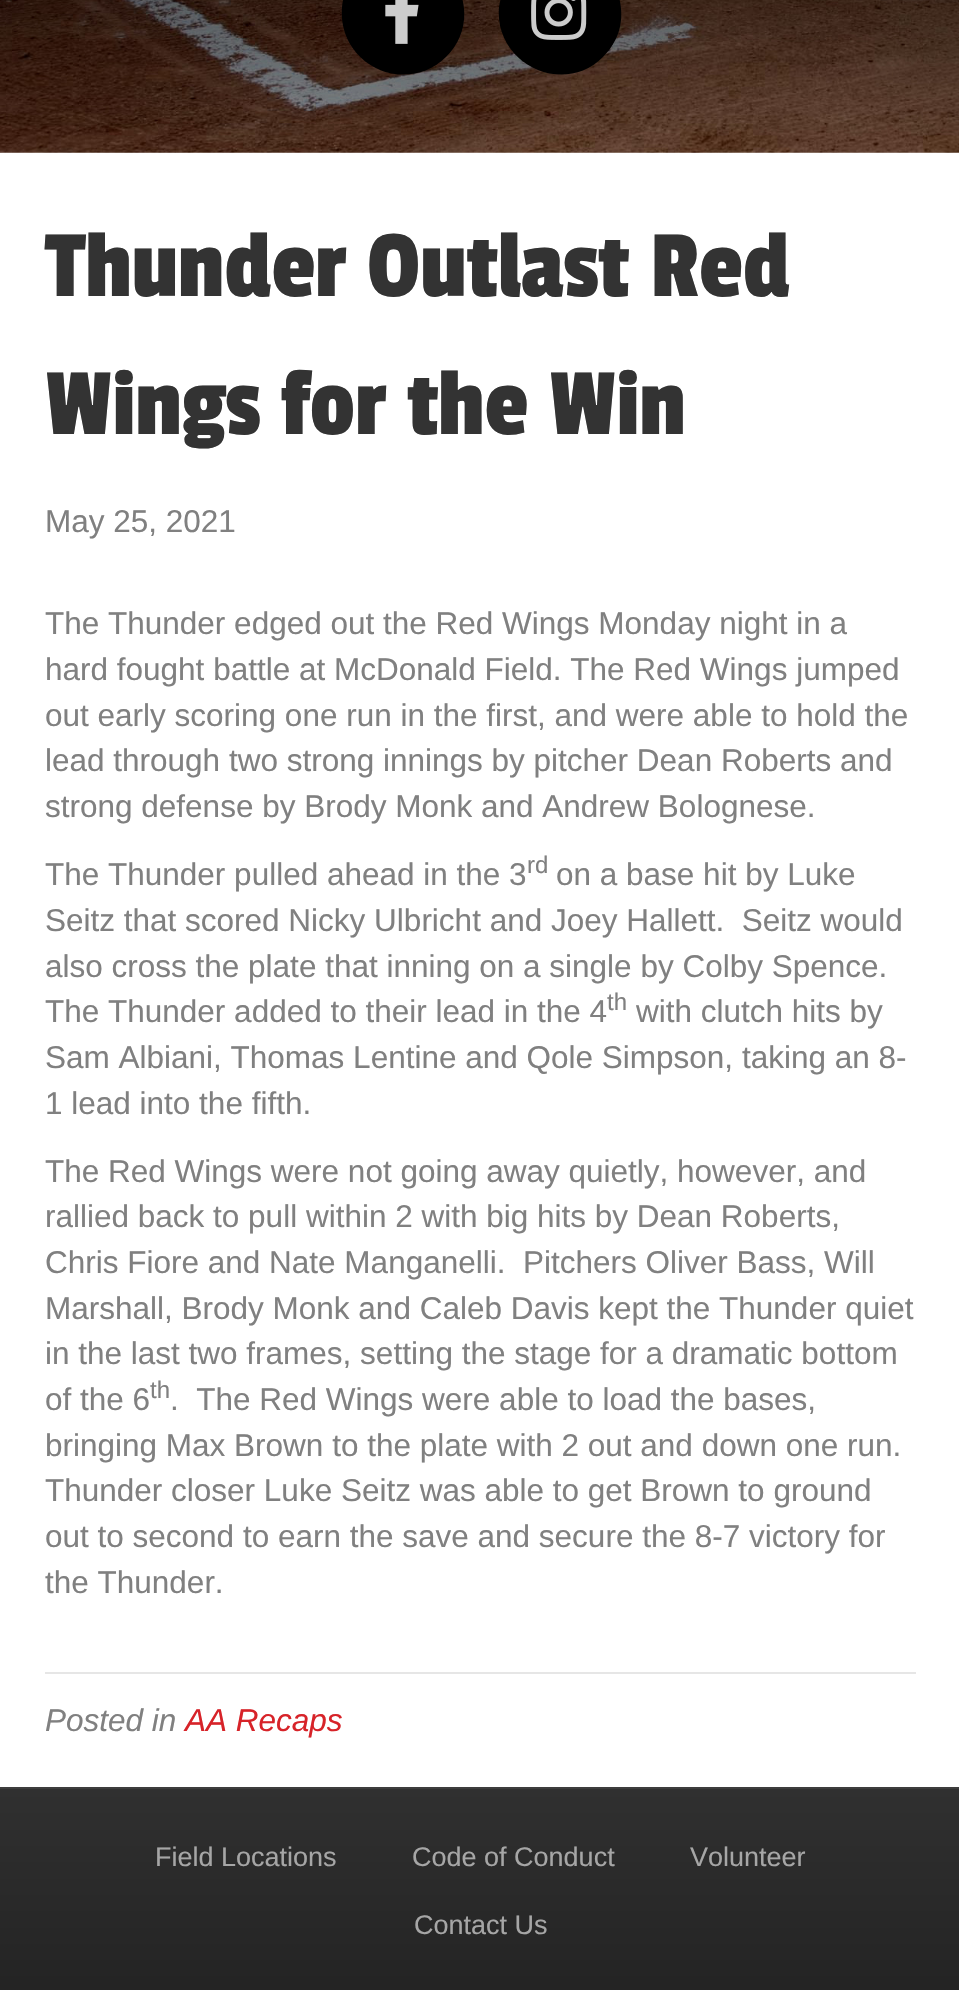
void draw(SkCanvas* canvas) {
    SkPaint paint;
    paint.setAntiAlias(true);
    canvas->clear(0xFFFFFFFF);
    canvas->drawImageRect(SkImages::DeferredFromEncodedData(SkData::MakeFromFileName("img1.png")), SkRect::MakeXYWH(0, 0, 959, 153), SkSamplingOptions());
    paint.setColor(0xFF000000);
    canvas->drawPath(SkPathBuilder().moveTo(360, -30).cubicTo(370, -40, 382, -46, 397, -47).cubicTo(454, -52, 487, 16, 446, 57).cubicTo(405, 97, 337, 64, 342, 7).cubicTo(343, -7, 350, -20, 360, -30).close().detach(), paint);
    canvas->drawImageRect(SkImages::DeferredFromEncodedData(SkData::MakeFromFileName("img2.png")), SkRect::MakeXYWH(385, 0, 34, 44), SkSamplingOptions());
    canvas->drawPath(SkPathBuilder().moveTo(517, -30).cubicTo(558, -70, 626, -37, 621, 20).cubicTo(620, 34, 613, 47, 603, 57).cubicTo(563, 97, 494, 64, 499, 7).cubicTo(501, -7, 507, -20, 517, -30).close().detach(), paint);
    canvas->drawImageRect(SkImages::DeferredFromEncodedData(SkData::MakeFromFileName("img3.png")), SkRect::MakeXYWH(531, 0, 56, 40), SkSamplingOptions());
    SkFont font1(fontMgr->matchFamilyStyle("Passion One", SkFontStyle::Normal()), 99);
    font1.setSubpixel(true);
    paint.setColor(0xFF333333);
    canvas->drawString("Thunder Outlast Red", 45, 296, font1, paint);
    canvas->drawString("Wings for the Win", 45, 434, font1, paint);
    SkFont font2(fontMgr->matchFamilyStyle("Liberation Sans", SkFontStyle::Normal()), 31.5f);
    font2.setSubpixel(true);
    paint.setColor(0xFF808080);
    canvas->drawString("May 25, 2021", 45, 532, font2, paint);
    canvas->drawString("The Thunder edged out the Red Wings Monday night in a", 45, 634, font2, paint);
    canvas->drawString("hard fought battle at McDonald Field. The Red Wings jumped", 45, 680, font2, paint);
    canvas->drawString("out early scoring one run in the first, and were able to hold the", 45, 726, font2, paint);
    canvas->drawString("lead through two strong innings by pitcher Dean Roberts and", 45, 771, font2, paint);
    canvas->drawString("strong defense by Brody Monk and Andrew Bolognese.", 45, 817, font2, paint);
    canvas->drawString("The Thunder pulled ahead in the 3", 45, 885, font2, paint);
    SkFont font3(fontMgr->matchFamilyStyle("Liberation Sans", SkFontStyle::Normal()), 24);
    font3.setSubpixel(true);
    canvas->drawString("rd", 527, 873, font3, paint);
    canvas->drawString("on a base hit by Luke", 556, 885, font2, paint);
    canvas->drawString("Seitz that scored Nicky Ulbricht and Joey Hallett.  Seitz would", 45, 931, font2, paint);
    canvas->drawString("also cross the plate that inning on a single by Colby Spence.", 45, 977, font2, paint);
    canvas->drawString("The Thunder added to their lead in the 4", 45, 1022, font2, paint);
    canvas->drawString("th", 607, 1010, font3, paint);
    canvas->drawString("with clutch hits by", 636, 1022, font2, paint);
    canvas->drawString("Sam Albiani, Thomas Lentine and Qole Simpson, taking an 8-", 45, 1068, font2, paint);
    canvas->drawString("1 lead into the fifth.", 45, 1114, font2, paint);
    canvas->drawString("The Red Wings were not going away quietly, however, and", 45, 1182, font2, paint);
    canvas->drawString("rallied back to pull within 2 with big hits by Dean Roberts,", 45, 1227, font2, paint);
    canvas->drawString("Chris Fiore and Nate Manganelli.  Pitchers Oliver Bass, Will", 45, 1273, font2, paint);
    canvas->drawString("Marshall, Brody Monk and Caleb Davis kept the Thunder quiet", 45, 1319, font2, paint);
    canvas->drawString("in the last two frames, setting the stage for a dramatic bottom", 45, 1364, font2, paint);
    canvas->drawString("of the 6", 45, 1410, font2, paint);
    canvas->drawString("th", 150, 1398, font3, paint);
    canvas->drawString(".  The Red Wings were able to load the bases,", 170, 1410, font2, paint);
    canvas->drawString("bringing Max Brown to the plate with 2 out and down one run.", 45, 1456, font2, paint);
    canvas->drawString("Thunder closer Luke Seitz was able to get Brown to ground", 45, 1501, font2, paint);
    canvas->drawString("out to second to earn the save and secure the 8-7 victory for", 45, 1547, font2, paint);
    canvas->drawString("the Thunder.", 45, 1593, font2, paint);
    paint.setColor(0xFFE6E6E6);
    canvas->drawRect(SkRect::MakeXYWH(45, 1672, 871, 2), paint);
    SkFont font4(fontMgr->matchFamilyStyle("Liberation Sans", SkFontStyle::Italic()), 31.5f);
    font4.setSubpixel(true);
    paint.setColor(0xFF808080);
    canvas->drawString("Posted in", 45, 1731, font4, paint);
    paint.setColor(0xFFD72329);
    canvas->drawString("AA Recaps", 185, 1731, font4, paint);
    {
        const SkColor colors[] = {0xFF303030, 0xFF1C1C1C};
        const float stops[] = {0, 1};
        const SkPoint ends[] = {{480, 1789}, {480, 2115}};
        paint.setShader(SkGradientShader::MakeLinear(ends, colors, stops, 2, SkTileMode::kClamp));
        paint.setAlpha(255);
    }
    canvas->drawRect(SkRect::MakeXYWH(0, 1789, 959, 201), paint);
    paint.setShader(nullptr);
    paint.setColor(0xFF3D3D3D);
    canvas->drawRect(SkRect::MakeXYWH(0, 1787, 959, 2), paint);
    SkFont font5(fontMgr->matchFamilyStyle("Liberation Sans", SkFontStyle::Normal()), 27);
    font5.setSubpixel(true);
    paint.setColor(0xFFA6A6A6);
    canvas->drawString("Field Locations", 155, 1866, font5, paint);
    canvas->drawString("Code of Conduct", 412, 1866, font5, paint);
    canvas->drawString("Volunteer", 690, 1866, font5, paint);
    canvas->drawString("Contact Us", 414, 1934, font5, paint);
}
